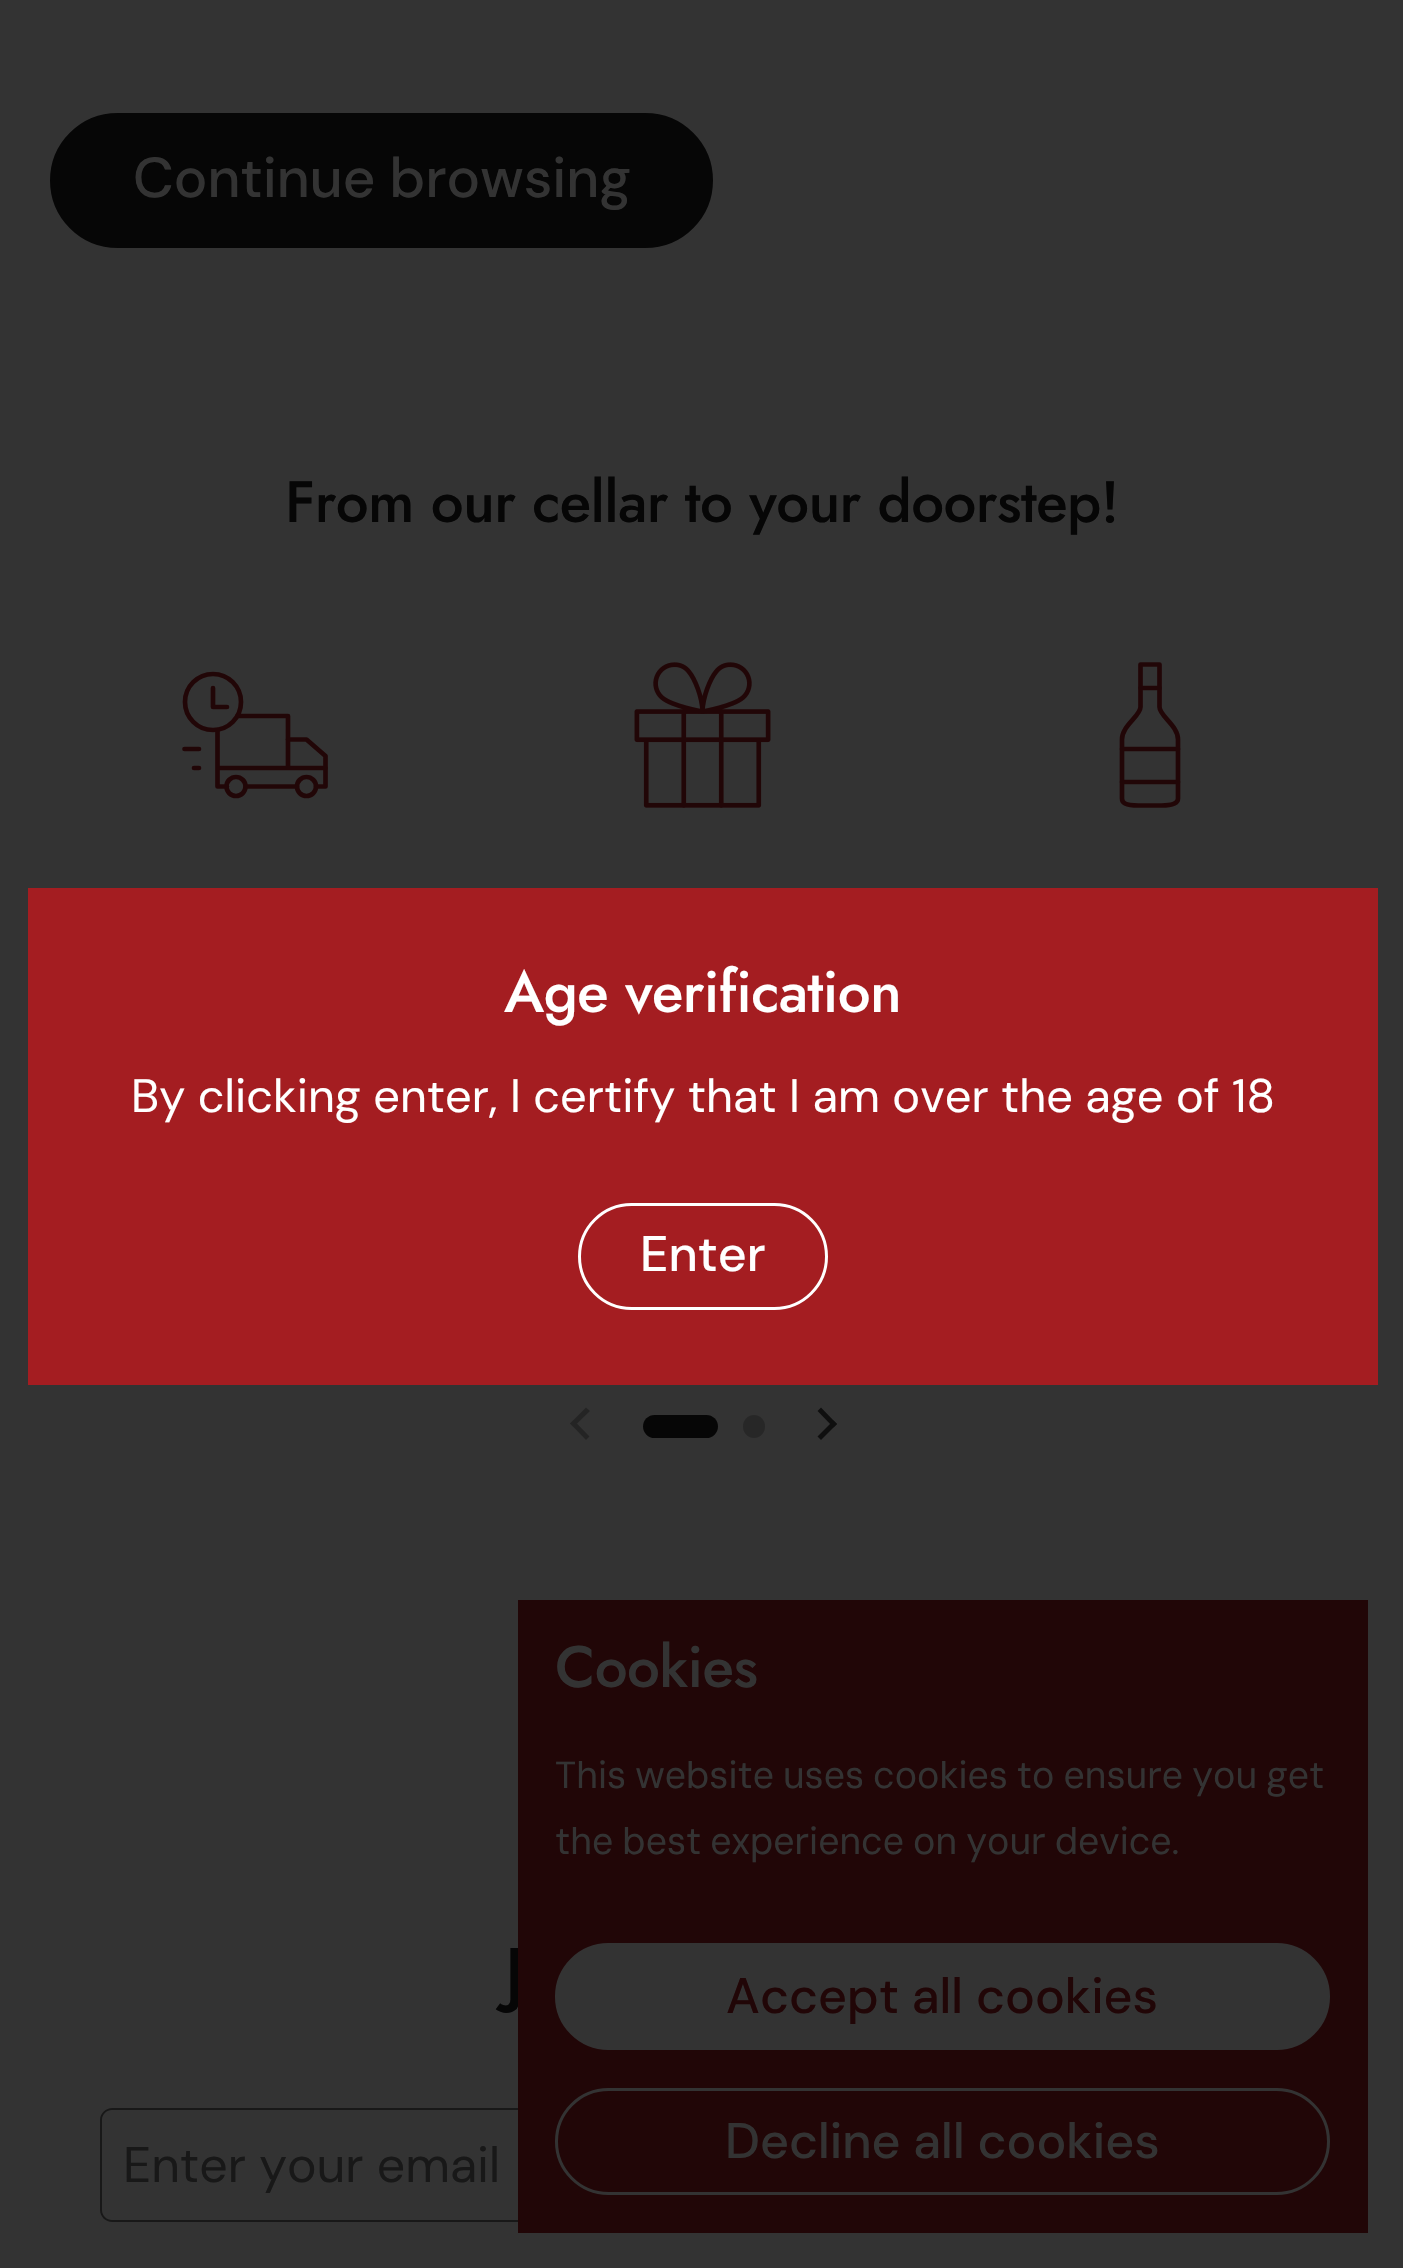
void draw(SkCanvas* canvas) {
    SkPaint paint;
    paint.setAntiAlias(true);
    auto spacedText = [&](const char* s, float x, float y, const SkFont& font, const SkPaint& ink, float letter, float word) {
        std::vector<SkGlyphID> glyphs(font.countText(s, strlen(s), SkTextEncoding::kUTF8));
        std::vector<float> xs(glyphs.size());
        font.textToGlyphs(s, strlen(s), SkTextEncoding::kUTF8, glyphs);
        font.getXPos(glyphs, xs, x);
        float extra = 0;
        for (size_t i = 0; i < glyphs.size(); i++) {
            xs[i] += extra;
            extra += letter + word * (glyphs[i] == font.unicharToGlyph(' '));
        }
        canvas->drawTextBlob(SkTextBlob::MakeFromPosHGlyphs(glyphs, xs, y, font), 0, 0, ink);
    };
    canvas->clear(0xFF333333);
    paint.setColor(0xFF060606);
    canvas->drawRoundRect(SkRect::MakeXYWH(51.5f, 114.5f, 660, 132), 66, 66, paint);
    paint.setStyle(SkPaint::kStroke_Style);
    paint.setStrokeWidth(3);
    canvas->drawRoundRect(SkRect::MakeXYWH(51.5f, 114.5f, 660, 132), 66, 66, paint);
    SkFont font1(fontMgr->matchFamilyStyle("DM Sans", SkFontStyle(500, SkFontStyle::kNormal_Width, SkFontStyle::kUpright_Slant)), 56.25f);
    font1.setSubpixel(true);
    paint.setStyle(SkPaint::kFill_Style);
    paint.setColor(0xFF333333);
    canvas->drawString("Continue browsing", 133, 197, font1, paint);
    SkFont font2(fontMgr->matchFamilyStyle("Jost", SkFontStyle(500, SkFontStyle::kNormal_Width, SkFontStyle::kUpright_Slant)), 58.3f);
    font2.setSubpixel(true);
    paint.setColor(0xFF060606);
    spacedText("From our cellar to your doorstep!", 285, 522, font2, paint, -0.6f, 0);
    paint.setStyle(SkPaint::kStroke_Style);
    paint.setStrokeWidth(4.7f);
    paint.setStrokeCap(SkPaint::kRound_Cap);
    paint.setStrokeJoin(SkPaint::kRound_Join);
    paint.setColor(0xFF210607);
    canvas->drawPath(SkPathBuilder().moveTo(325.5f, 768).lineTo(325.5f, 756).lineTo(306.5f, 739.5f).lineTo(288, 739.5f).detach(), paint);
    paint.setStrokeCap(SkPaint::kButt_Cap);
    paint.setStrokeJoin(SkPaint::kMiter_Join);
    canvas->drawCircle(236, 786.5f, 9.5f, paint);
    canvas->drawCircle(306.5f, 786.5f, 9.5f, paint);
    paint.setStrokeCap(SkPaint::kRound_Cap);
    paint.setStrokeJoin(SkPaint::kRound_Join);
    canvas->drawPath(SkPathBuilder().moveTo(297, 786.5f).lineTo(245.5f, 786.5f).moveTo(227, 786.5f).lineTo(217.5f, 786.5f).lineTo(217.5f, 768).lineTo(325.5f, 768).lineTo(325.5f, 786.5f).lineTo(316, 786.5f).moveTo(237.5f, 716).lineTo(288, 716).lineTo(288, 768).moveTo(217.5f, 768).lineTo(217.5f, 730).moveTo(184.5f, 749).lineTo(199, 749).moveTo(194, 768).lineTo(199, 768).detach(), paint);
    paint.setStrokeCap(SkPaint::kButt_Cap);
    paint.setStrokeJoin(SkPaint::kMiter_Join);
    canvas->drawCircle(213, 702, 28, paint);
    paint.setStrokeCap(SkPaint::kRound_Cap);
    paint.setStrokeJoin(SkPaint::kRound_Join);
    canvas->drawPath(SkPathBuilder().moveTo(213, 688).lineTo(213, 707).lineTo(227, 707).detach(), paint);
    canvas->drawImageRect(SkImages::DeferredFromEncodedData(SkData::MakeFromFileName("img1.png")), SkRect::MakeXYWH(634, 662, 137, 146), SkSamplingOptions());
    canvas->drawPath(SkPathBuilder().moveTo(1178, 749).lineTo(1178, 739.5f).cubicTo(1178, 725.5f, 1159.5f, 716, 1159.5f, 707).lineTo(1159.5f, 688).moveTo(1140.5f, 688).lineTo(1140.5f, 707).cubicTo(1140.5f, 716, 1122, 725.5f, 1122, 739.5f).lineTo(1122, 749).moveTo(1122, 782).lineTo(1122, 798.5f).cubicTo(1122, 802.5f, 1124.5f, 805.5f, 1138.5f, 805.5f).lineTo(1161.5f, 805.5f).cubicTo(1174.5f, 805.5f, 1178, 802.5f, 1178, 798.5f).lineTo(1178, 782).detach(), paint);
    canvas->drawPath(SkPathBuilder().moveTo(1122, 749).lineTo(1178, 749).lineTo(1178, 782).lineTo(1122, 782).close().moveTo(1140.5f, 664.5f).lineTo(1159.5f, 664.5f).lineTo(1159.5f, 688).lineTo(1140.5f, 688).close().detach(), paint);
    paint.setStyle(SkPaint::kFill_Style);
    paint.setColor(0xFF242424);
    canvas->drawPath(SkPathBuilder().moveTo(590, 1411).lineTo(573.5f, 1427).lineTo(570, 1423.5f).lineTo(586, 1407.5f).close().detach(), paint);
    canvas->drawPath(SkPathBuilder().moveTo(586, 1440).lineTo(570, 1423.5f).lineTo(573.5f, 1420).lineTo(589.5f, 1436.5f).close().detach(), paint);
    paint.setColor(0xFF060606);
    canvas->drawRoundRect(SkRect::MakeXYWH(643, 1415, 75, 23), 11.5f, 11.5f, paint);
    paint.setColor(0xFF272727);
    canvas->drawRoundRect(SkRect::MakeXYWH(743, 1415, 22, 23), 11, 11, paint);
    paint.setColor(0xFF0F0F0F);
    canvas->drawPath(SkPathBuilder().moveTo(817.5f, 1436.5f).lineTo(833.5f, 1420.5f).lineTo(837, 1424).lineTo(821, 1440).close().detach(), paint);
    canvas->drawPath(SkPathBuilder().moveTo(821, 1407.5f).lineTo(837, 1424).lineTo(833.5f, 1427.5f).lineTo(817.5f, 1411).close().detach(), paint);
    paint.setColor(0xFFA41D21);
    canvas->drawRect(SkRect::MakeXYWH(28, 888, 1350, 497), paint);
    paint.setColor(0xFFFFFFFF);
    spacedText("Age verification", 504, 1012, font2, paint, -0.6f, 0);
    SkFont font3(fontMgr->matchFamilyStyle("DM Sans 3", SkFontStyle::Normal()), 46.9f);
    font3.setSubpixel(true);
    canvas->drawString("By clicking enter, I certify that I am over the age of 18", 131, 1112, font3, paint);
    paint.setStyle(SkPaint::kStroke_Style);
    paint.setStrokeWidth(3);
    paint.setStrokeCap(SkPaint::kButt_Cap);
    paint.setStrokeJoin(SkPaint::kMiter_Join);
    canvas->drawRoundRect(SkRect::MakeXYWH(579.5f, 1204.5f, 247, 104), 52, 52, paint);
    SkFont font4(fontMgr->matchFamilyStyle("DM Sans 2", SkFontStyle(500, SkFontStyle::kNormal_Width, SkFontStyle::kUpright_Slant)), 50);
    font4.setSubpixel(true);
    paint.setStyle(SkPaint::kFill_Style);
    canvas->drawString("Enter", 640, 1271, font4, paint);
    SkFont font5(fontMgr->matchFamilyStyle("Jost", SkFontStyle(500, SkFontStyle::kNormal_Width, SkFontStyle::kUpright_Slant)), 70);
    font5.setSubpixel(true);
    paint.setColor(0xFF060606);
    spacedText("J", 505, 1997, font5, paint, -1, 0);
    paint.setColor(0xFF181818);
    canvas->drawPath(SkPathBuilder(SkPathFillType::kEvenOdd).moveTo(112, 2108).lineTo(958, 2108).lineTo(958, 2222).lineTo(112, 2222).cubicTo(106, 2222, 100, 2217, 100, 2210).lineTo(100, 2120).cubicTo(100, 2113, 106, 2108, 112, 2108).close().moveTo(112, 2110).lineTo(958, 2110).lineTo(958, 2220).lineTo(112, 2220).cubicTo(107, 2220, 102, 2216, 102, 2210).lineTo(102, 2120).cubicTo(102, 2114, 107, 2110, 112, 2110).close().detach(), paint);
    SkFont font6(fontMgr->matchFamilyStyle("DM Sans", SkFontStyle::Normal()), 50);
    font6.setSubpixel(true);
    canvas->drawString("Enter your email", 123, 2182, font6, paint);
    paint.setColor(0xFF210607);
    canvas->drawRect(SkRect::MakeXYWH(518, 1600, 850, 633), paint);
    paint.setColor(0xFF333333);
    spacedText("Cookies", 555, 1687, font2, paint, -0.6f, 0);
    SkFont font7(fontMgr->matchFamilyStyle("DM Sans 2", SkFontStyle::Normal()), 37.5f);
    font7.setSubpixel(true);
    spacedText("This website uses cookies to ensure you get", 555, 1788, font7, paint, 0, -1);
    spacedText("the best experience on your device.", 555, 1854, font7, paint, 0, -1);
    canvas->drawRoundRect(SkRect::MakeXYWH(556.5f, 1944.5f, 772, 104), 52, 52, paint);
    paint.setStyle(SkPaint::kStroke_Style);
    canvas->drawRoundRect(SkRect::MakeXYWH(556.5f, 1944.5f, 772, 104), 52, 52, paint);
    paint.setStyle(SkPaint::kFill_Style);
    paint.setColor(0xFF210607);
    canvas->drawString("Accept all cookies", 726, 2013, font4, paint);
    paint.setStyle(SkPaint::kStroke_Style);
    paint.setColor(0xFF333333);
    canvas->drawRoundRect(SkRect::MakeXYWH(556.5f, 2089.5f, 772, 104), 52, 52, paint);
    paint.setStyle(SkPaint::kFill_Style);
    canvas->drawString("Decline all cookies", 725, 2158, font4, paint);
}
